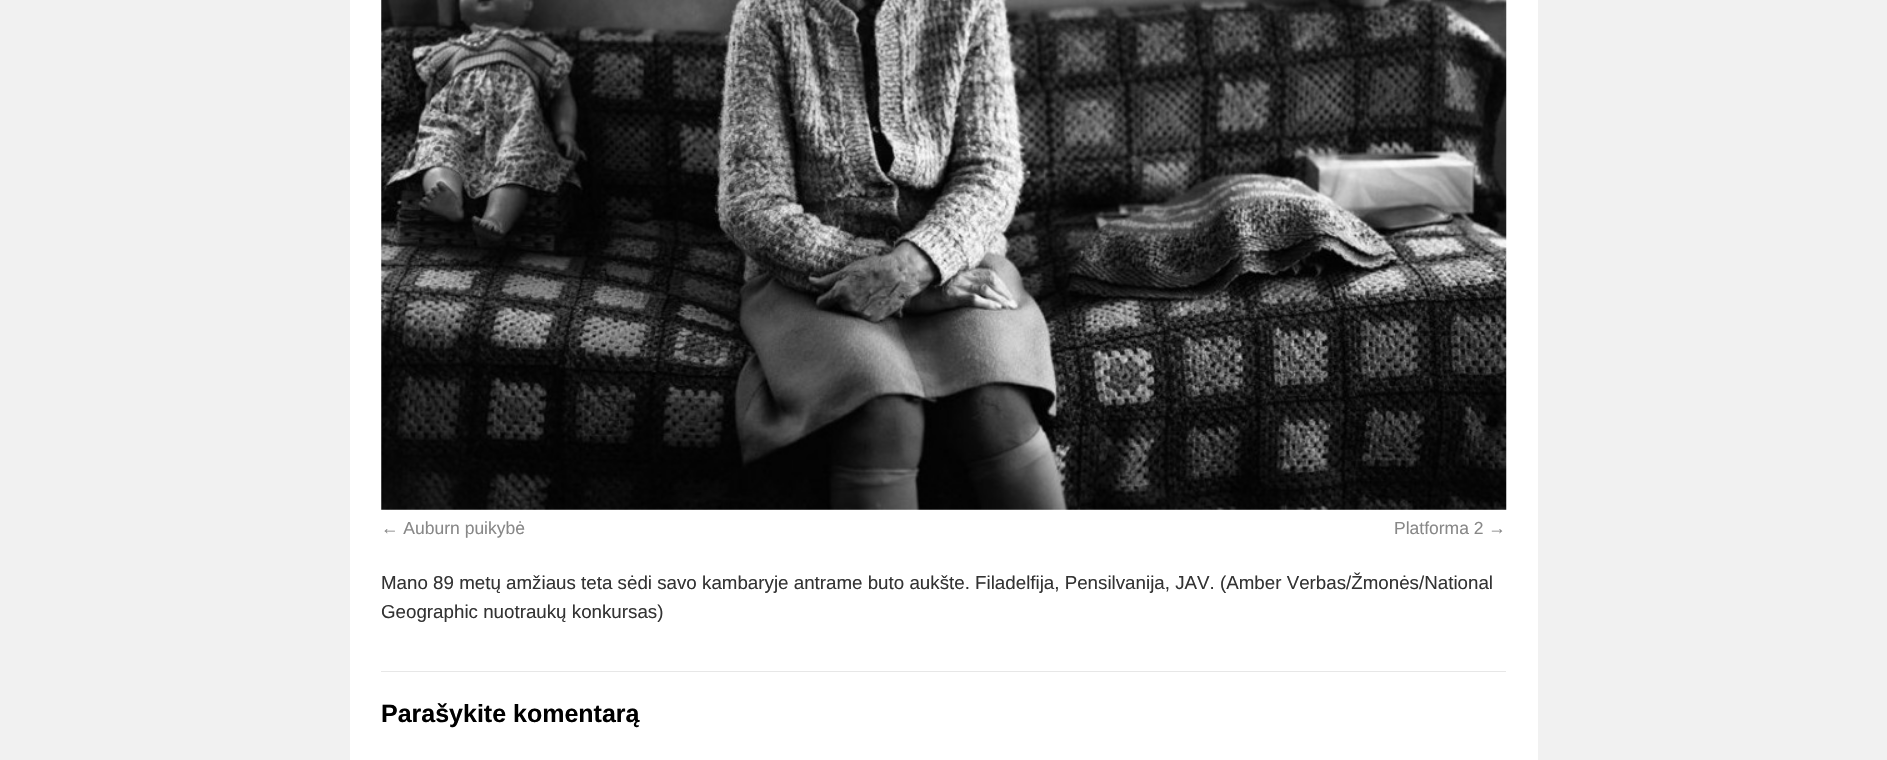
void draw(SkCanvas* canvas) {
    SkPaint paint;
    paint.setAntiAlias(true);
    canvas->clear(0xFFF1F1F1);
    paint.setColor(0xFFFFFFFF);
    canvas->drawRect(SkRect::MakeXYWH(350, 0, 1188, 760), paint);
    canvas->drawImageRect(SkImages::DeferredFromEncodedData(SkData::MakeFromFileName("img1.png")), SkRect::MakeXYWH(381, 0, 1126, 510), SkSamplingOptions());
    SkFont font1(fontMgr->matchFamilyStyle("Liberation Sans", SkFontStyle::Normal()), 17.5f);
    font1.setSubpixel(true);
    paint.setColor(0xFF888888);
    canvas->drawString("← Auburn puikybė", 381, 534, font1, paint);
    canvas->drawString("Platforma 2 →", 1394, 534, font1, paint);
    SkFont font2(fontMgr->matchFamilyStyle("Liberation Sans", SkFontStyle::Normal()), 18.75f);
    font2.setSubpixel(true);
    paint.setColor(0xFF333333);
    canvas->drawString("Mano 89 metų amžiaus teta sėdi savo kambaryje antrame buto aukšte. Filadelfija, Pensilvanija, JAV. (Amber Verbas/Žmonės/National", 381, 589, font2, paint);
    canvas->drawString("Geographic nuotraukų konkursas)", 381, 618, font2, paint);
    paint.setColor(0xFFE7E7E7);
    canvas->drawRect(SkRect::MakeXYWH(381, 671, 1125, 1), paint);
    SkFont font3(fontMgr->matchFamilyStyle("Liberation Sans", SkFontStyle::Bold()), 25);
    font3.setSubpixel(true);
    paint.setColor(0xFF000000);
    canvas->drawString("Parašykite komentarą", 381, 722, font3, paint);
}
